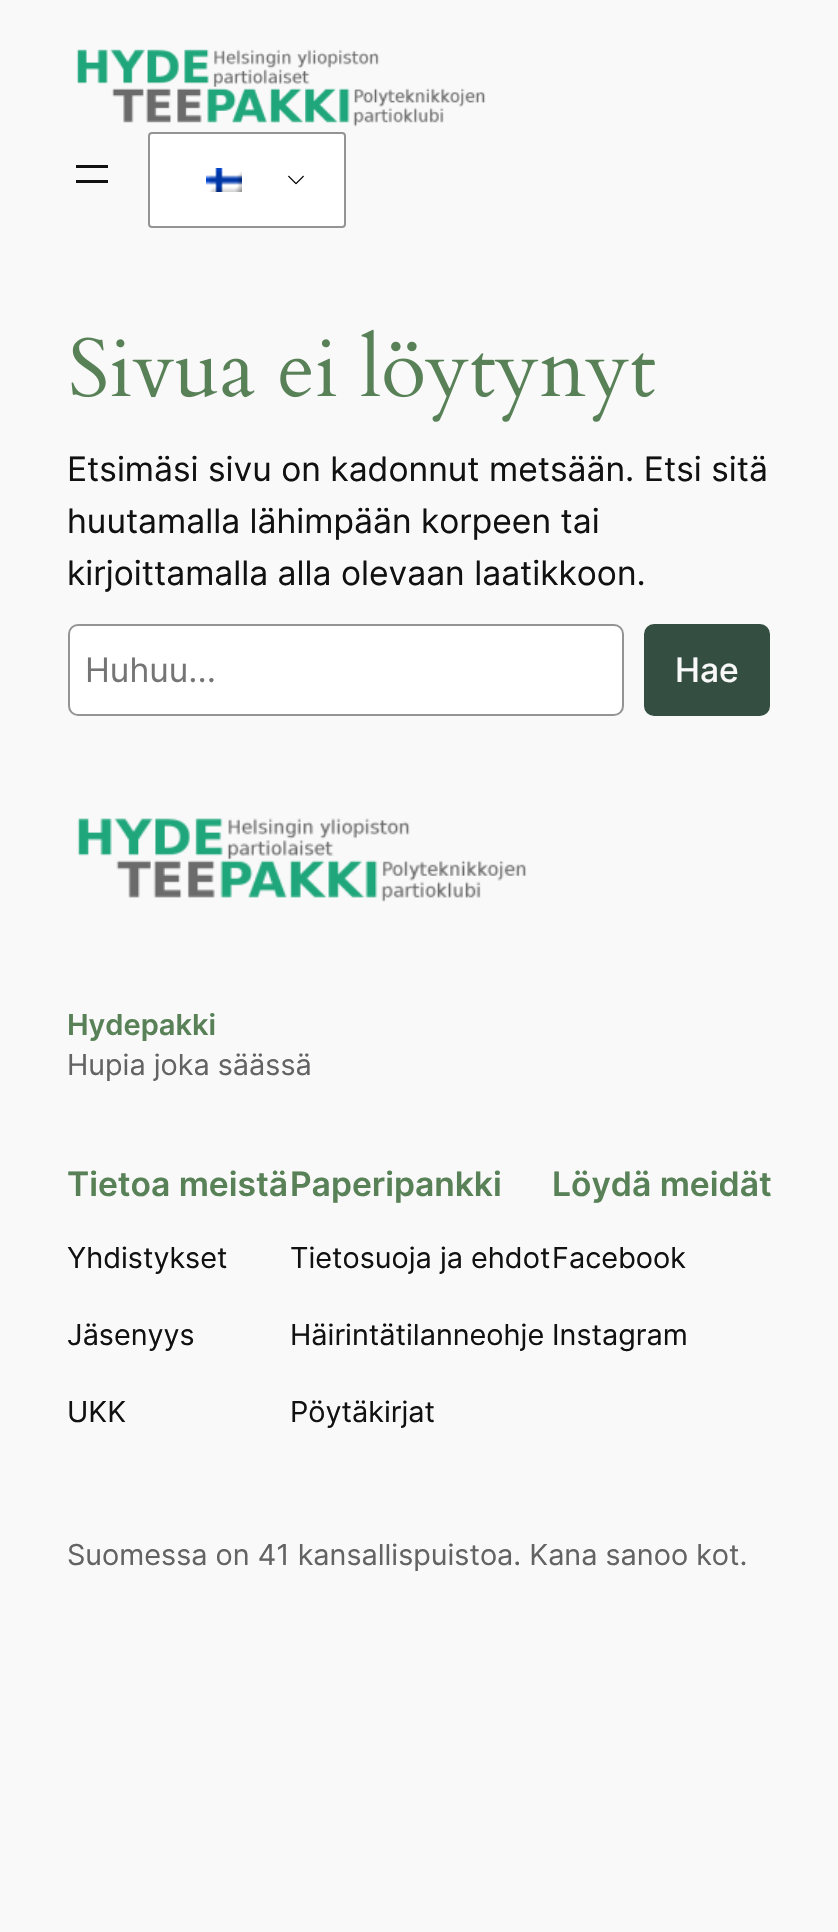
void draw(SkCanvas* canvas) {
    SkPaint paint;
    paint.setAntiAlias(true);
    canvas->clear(0xFFF9F9F9);
    canvas->drawImageRect(SkImages::DeferredFromEncodedData(SkData::MakeFromFileName("img1.png")), SkRect::MakeXYWH(76, 49, 410, 78), SkSamplingOptions());
    paint.setColor(0xFF111111);
    canvas->drawRect(SkRect::MakeXYWH(76, 165, 32, 3), paint);
    canvas->drawRect(SkRect::MakeXYWH(76, 180, 32, 3), paint);
    paint.setColor(0xFFFFFFFF);
    canvas->drawRoundRect(SkRect::MakeXYWH(148, 132, 198, 96), 4, 4, paint);
    canvas->drawImageRect(SkImages::DeferredFromEncodedData(SkData::MakeFromFileName("img2.png")), SkRect::MakeXYWH(288, 175, 16, 10), SkSamplingOptions());
    paint.setStyle(SkPaint::kStroke_Style);
    paint.setStrokeWidth(2);
    paint.setColor(0xFF949494);
    canvas->drawRoundRect(SkRect::MakeXYWH(149, 133, 196, 94), 3, 3, paint);
    canvas->drawImageRect(SkImages::DeferredFromEncodedData(SkData::MakeFromFileName("img3.png")), SkRect::MakeXYWH(206, 168, 36, 24), SkSamplingOptions());
    canvas->drawImageRect(SkImages::DeferredFromEncodedData(SkData::MakeFromFileName("img4.png")), SkRect::MakeXYWH(71, 329, 584, 93), SkSamplingOptions());
    SkFont font1(fontMgr->matchFamilyStyle("Inter", SkFontStyle::Normal()), 33.6f);
    font1.setSubpixel(true);
    paint.setStyle(SkPaint::kFill_Style);
    paint.setColor(0xFF111111);
    canvas->drawString("Etsimäsi sivu on kadonnut metsään. Etsi sitä", 67, 481, font1, paint);
    canvas->drawString("huutamalla lähimpään korpeen tai", 67, 533, font1, paint);
    canvas->drawString("kirjoittamalla alla olevaan laatikkoon.", 67, 585, font1, paint);
    paint.setColor(0xFFFFFFFF);
    canvas->drawRoundRect(SkRect::MakeXYWH(69, 625, 554, 90), 9, 9, paint);
    paint.setStyle(SkPaint::kStroke_Style);
    paint.setColor(0xFF949494);
    canvas->drawRoundRect(SkRect::MakeXYWH(69, 625, 554, 90), 9, 9, paint);
    paint.setStyle(SkPaint::kFill_Style);
    paint.setColor(0xFF757575);
    canvas->drawString("Huhuu...", 85, 682, font1, paint);
    paint.setColor(0xFF344E41);
    canvas->drawRoundRect(SkRect::MakeXYWH(644, 624, 126, 92), 10, 10, paint);
    SkFont font2(fontMgr->matchFamilyStyle("Inter", SkFontStyle(500, SkFontStyle::kNormal_Width, SkFontStyle::kUpright_Slant)), 33.6f);
    font2.setSubpixel(true);
    paint.setColor(0xFFF9F9F9);
    canvas->drawString("Hae", 675, 682, font2, paint);
    canvas->drawImageRect(SkImages::DeferredFromEncodedData(SkData::MakeFromFileName("img5.png")), SkRect::MakeXYWH(77, 818, 450, 84), SkSamplingOptions());
    SkFont font3(fontMgr->matchFamilyStyle("Inter", SkFontStyle(600, SkFontStyle::kNormal_Width, SkFontStyle::kUpright_Slant)), 29);
    font3.setSubpixel(true);
    paint.setColor(0xFF588157);
    canvas->drawString("Hydepakki", 67, 1035, font3, paint);
    SkFont font4(fontMgr->matchFamilyStyle("Inter", SkFontStyle::Normal()), 28.8f);
    font4.setSubpixel(true);
    paint.setColor(0xFF636363);
    canvas->drawString("Hupia joka säässä", 67, 1075, font4, paint);
    SkFont font5(fontMgr->matchFamilyStyle("Inter", SkFontStyle(600, SkFontStyle::kNormal_Width, SkFontStyle::kUpright_Slant)), 33.6f);
    font5.setSubpixel(true);
    paint.setColor(0xFF588157);
    canvas->drawString("Tietoa meistä", 67, 1196, font5, paint);
    paint.setColor(0xFF111111);
    canvas->drawString("Yhdistykset", 67, 1268, font4, paint);
    canvas->drawString("Jäsenyys", 67, 1345, font4, paint);
    canvas->drawString("UKK", 67, 1422, font4, paint);
    paint.setColor(0xFF588157);
    canvas->drawString("Paperipankki", 290, 1196, font5, paint);
    paint.setColor(0xFF111111);
    canvas->drawString("Tietosuoja ja ehdot", 290, 1268, font4, paint);
    canvas->drawString("Häirintätilanneohje", 290, 1345, font4, paint);
    canvas->drawString("Pöytäkirjat", 290, 1422, font4, paint);
    paint.setColor(0xFF588157);
    canvas->drawString("Löydä meidät", 552, 1196, font5, paint);
    paint.setColor(0xFF111111);
    canvas->drawString("Facebook", 552, 1268, font4, paint);
    canvas->drawString("Instagram", 552, 1345, font4, paint);
    paint.setColor(0xFF636363);
    canvas->drawString("Suomessa on 41 kansallispuistoa. Kana sanoo kot.", 67, 1565, font4, paint);
}
